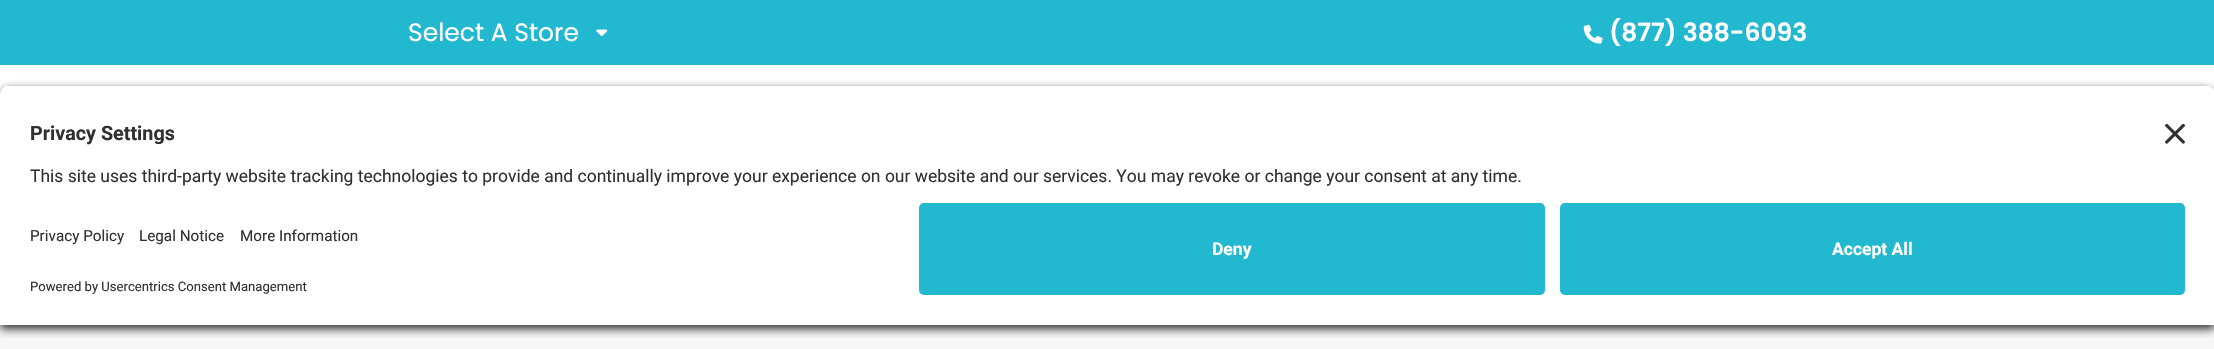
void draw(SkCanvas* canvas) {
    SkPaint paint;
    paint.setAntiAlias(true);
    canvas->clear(0xFFFFFFFF);
    paint.setColor(0xFF22B8CF);
    canvas->drawRect(SkRect::MakeXYWH(0, 0, 2214, 65), paint);
    SkFont font1(fontMgr->matchFamilyStyle("Poppins", SkFontStyle::Normal()), 25);
    font1.setSubpixel(true);
    paint.setColor(0xFFFFFFFF);
    canvas->drawString("Select A Store", 408, 41, font1, paint);
    canvas->drawImageRect(SkImages::DeferredFromEncodedData(SkData::MakeFromFileName("img1.png")), SkRect::MakeXYWH(596, 29, 12, 8), SkSamplingOptions());
    canvas->drawImageRect(SkImages::DeferredFromEncodedData(SkData::MakeFromFileName("img2.png")), SkRect::MakeXYWH(1583, 24, 20, 20), SkSamplingOptions());
    SkFont font2(fontMgr->matchFamilyStyle("Poppins", SkFontStyle(600, SkFontStyle::kNormal_Width, SkFontStyle::kUpright_Slant)), 25);
    font2.setSubpixel(true);
    canvas->drawString("(877) 388-6093", 1609, 41, font2, paint);
    paint.setColor(0xFFF7F7F7);
    canvas->drawRect(SkRect::MakeXYWH(0, 325, 2214, 24), paint);
    canvas->save();
    canvas->clipRect(SkRect::MakeXYWH(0, 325, 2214, 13));
    paint.setColor(0xCC000000);
    paint.setMaskFilter(SkMaskFilter::MakeBlur(kNormal_SkBlurStyle, 4.5f));
    canvas->drawRect(SkRect::MakeXYWH(0, -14, 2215, 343), paint);
    paint.setMaskFilter(nullptr);
    canvas->restore();
    canvas->save();
    canvas->clipRect(SkRect::MakeXYWH(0, 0, 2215, 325));
    paint.setMaskFilter(SkMaskFilter::MakeBlur(kNormal_SkBlurStyle, 4.5f));
    canvas->drawRoundRect(SkRect::MakeXYWH(0, 89, 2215, 240), 10, 10, paint);
    paint.setMaskFilter(nullptr);
    canvas->restore();
    canvas->save();
    canvas->clipPath(SkPathBuilder().moveTo(10, 85).lineTo(2205, 85).cubicTo(2210.5f, 85, 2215, 89.5f, 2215, 95).lineTo(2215, 193).lineTo(0, 193).lineTo(0, 95).cubicTo(0, 89.5f, 4.5f, 85, 10, 85).close().detach(), true);
    paint.setColor(0xFFFFFFFF);
    canvas->drawRect(SkRect::MakeXYWH(0, 86, 2214, 107), paint);
    canvas->restore();
    SkFont font3(fontMgr->matchFamilyStyle("Roboto", SkFontStyle::Bold()), 19.75f);
    font3.setSubpixel(true);
    paint.setColor(0xFF303030);
    canvas->drawString("Privacy Settings", 30, 140, font3, paint);
    canvas->drawImageRect(SkImages::DeferredFromEncodedData(SkData::MakeFromFileName("img3.png")), SkRect::MakeXYWH(2165, 124, 20, 20), SkSamplingOptions());
    SkFont font4(fontMgr->matchFamilyStyle("Roboto", SkFontStyle::Normal()), 17.5f);
    font4.setSubpixel(true);
    canvas->drawString("This site uses third-party website tracking technologies to provide and continually improve your experience on our website and our services. You may revoke or change your consent at any time.", 30, 182, font4, paint);
    paint.setColor(0xFFFFFFFF);
    canvas->drawRect(SkRect::MakeXYWH(0, 193, 2214, 132), paint);
    SkFont font5(fontMgr->matchFamilyStyle("Roboto", SkFontStyle::Normal()), 15.25f);
    font5.setSubpixel(true);
    paint.setColor(0xFF303030);
    canvas->drawString("Privacy Policy", 30, 241, font5, paint);
    canvas->drawString("Legal Notice", 139, 241, font5, paint);
    canvas->drawString("More Information", 240, 241, font5, paint);
    SkFont font6(fontMgr->matchFamilyStyle("Roboto", SkFontStyle::Normal()), 13.1f);
    font6.setSubpixel(true);
    canvas->drawString("Powered by Usercentrics Consent Management", 30, 291, font6, paint);
    paint.setColor(0xFF22B8CF);
    canvas->drawRoundRect(SkRect::MakeXYWH(919, 203, 626, 92), 5, 5, paint);
    SkFont font7(fontMgr->matchFamilyStyle("Roboto", SkFontStyle::Bold()), 17.5f);
    font7.setSubpixel(true);
    paint.setColor(0xFFFFFFFF);
    canvas->drawString("Deny", 1212, 255, font7, paint);
    paint.setColor(0xFF22B8CF);
    canvas->drawRoundRect(SkRect::MakeXYWH(1560, 203, 625, 92), 5, 5, paint);
    paint.setColor(0xFFFFFFFF);
    canvas->drawString("Accept All", 1832, 255, font7, paint);
}
